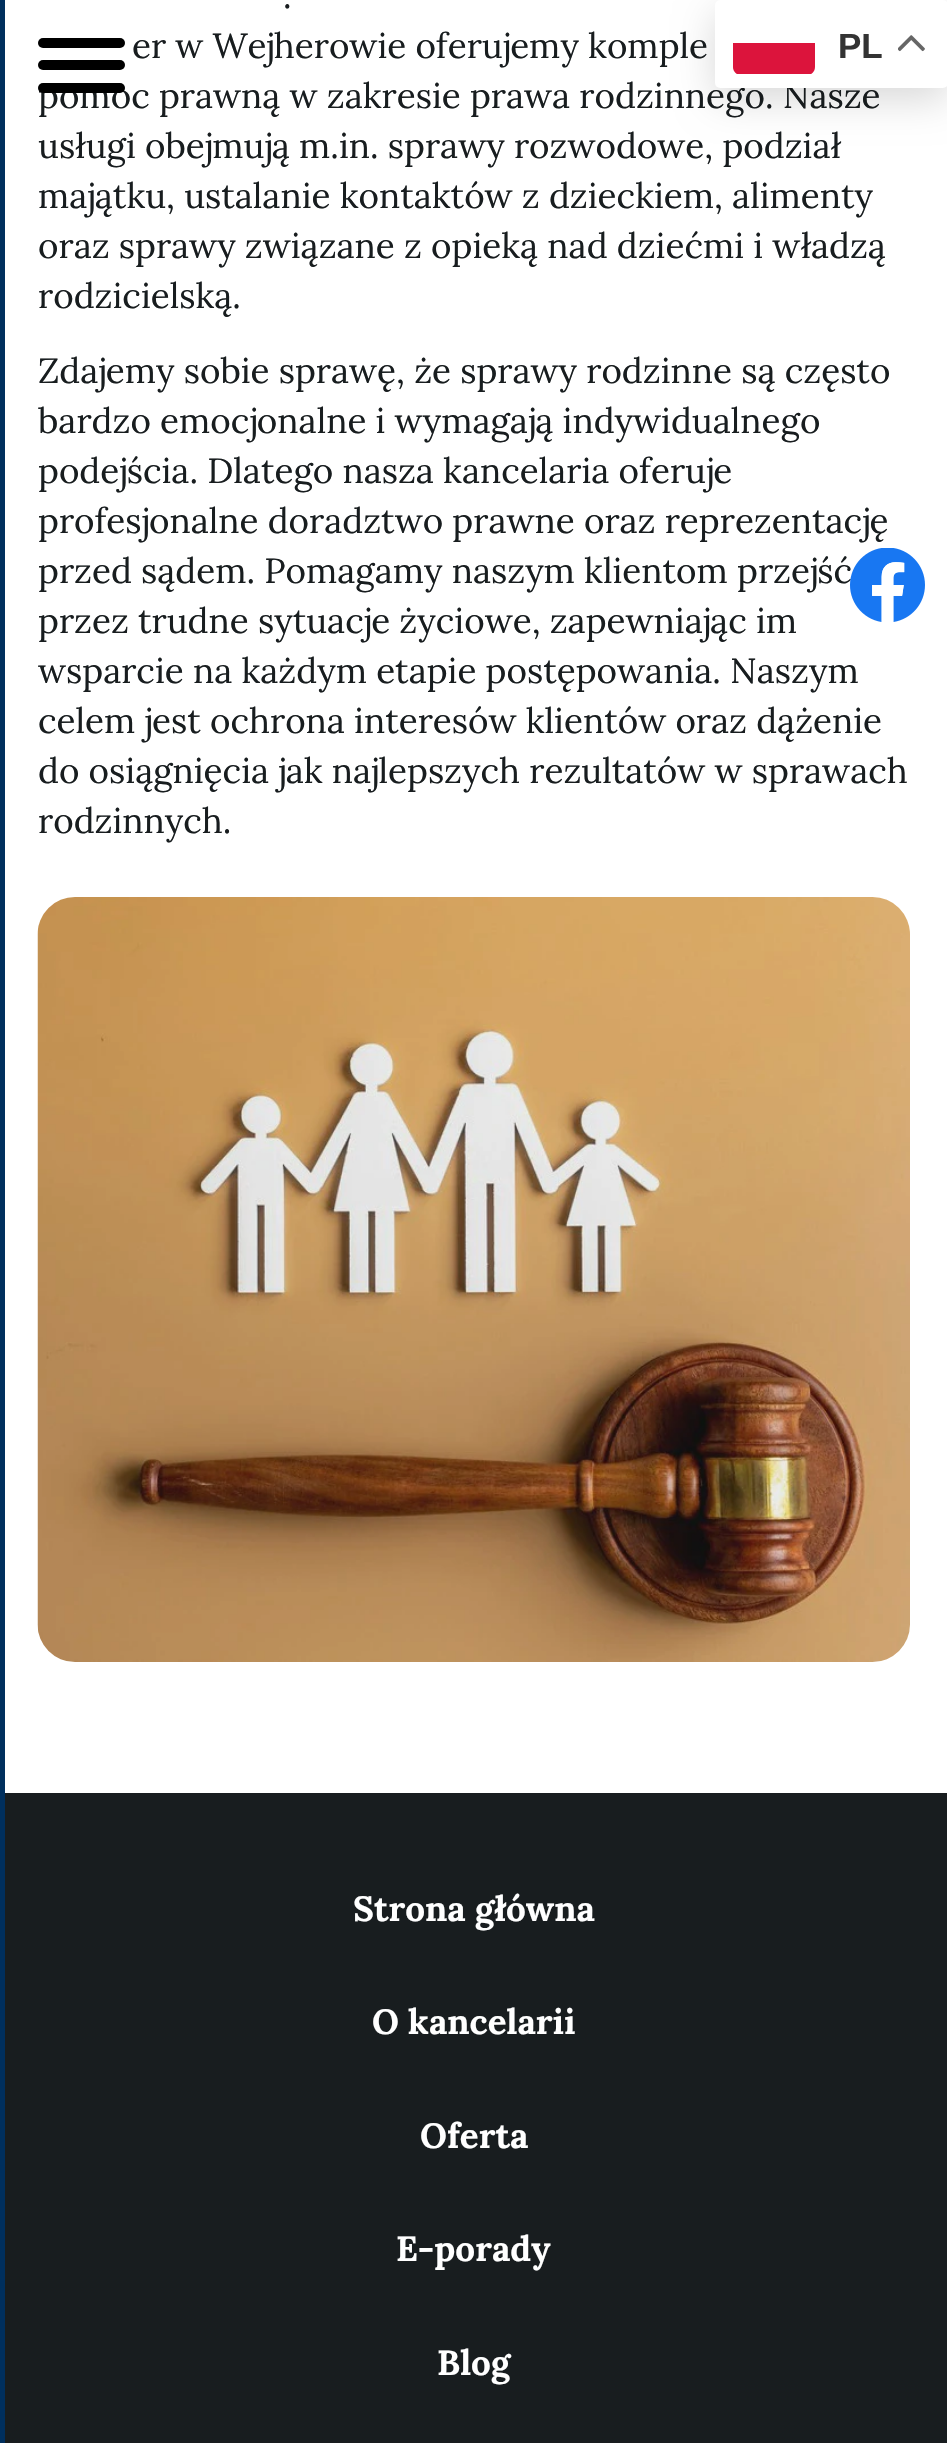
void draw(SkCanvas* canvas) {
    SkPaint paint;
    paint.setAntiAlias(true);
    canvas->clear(0xFFFFFFFF);
    paint.setColor(0xFF002F5D);
    canvas->drawRect(SkRect::MakeXYWH(0, 0, 5, 2443), paint);
    paint.setColor(0xFF000000);
    canvas->drawRoundRect(SkRect::MakeXYWH(38, 38, 87, 10), 5, 5, paint);
    canvas->drawRoundRect(SkRect::MakeXYWH(38, 60, 87, 10), 5, 5, paint);
    SkFont font1(fontMgr->matchFamilyStyle("Lora", SkFontStyle::Normal()), 35);
    font1.setSubpixel(true);
    paint.setColor(0xFF181D1F);
    canvas->drawString("pomoc prawną w zakresie prawa rodzinnego. Nasze", 38, 108, font1, paint);
    paint.setColor(0xFF000000);
    canvas->drawRoundRect(SkRect::MakeXYWH(38, 83, 87, 10), 5, 5, paint);
    paint.setColor(0xFF181D1F);
    canvas->drawString(".", 283, 8, font1, paint);
    canvas->drawString("er w Wejherowie oferujemy komple", 132, 58, font1, paint);
    canvas->drawString("usługi obejmują m.in. sprawy rozwodowe, podział", 38, 158, font1, paint);
    canvas->drawString("majątku, ustalanie kontaktów z dzieckiem, alimenty", 38, 208, font1, paint);
    canvas->drawString("oraz sprawy związane z opieką nad dziećmi i władzą", 38, 258, font1, paint);
    canvas->drawString("rodzicielską.", 38, 308, font1, paint);
    canvas->drawString("Zdajemy sobie sprawę, że sprawy rodzinne są często", 38, 383, font1, paint);
    canvas->drawString("bardzo emocjonalne i wymagają indywidualnego", 38, 433, font1, paint);
    canvas->drawString("podejścia. Dlatego nasza kancelaria oferuje", 38, 483, font1, paint);
    canvas->drawString("profesjonalne doradztwo prawne oraz reprezentację", 38, 533, font1, paint);
    canvas->drawString("przed sądem. Pomagamy naszym klientom przejść", 38, 583, font1, paint);
    canvas->drawString("przez trudne sytuacje życiowe, zapewniając im", 38, 633, font1, paint);
    canvas->drawString("wsparcie na każdym etapie postępowania. Naszym", 38, 683, font1, paint);
    canvas->drawString("celem jest ochrona interesów klientów oraz dążenie", 38, 733, font1, paint);
    canvas->drawString("do osiągnięcia jak najlepszych rezultatów w sprawach", 38, 783, font1, paint);
    canvas->drawString("rodzinnych.", 38, 833, font1, paint);
    canvas->drawImageRect(SkImages::DeferredFromEncodedData(SkData::MakeFromFileName("img1.png")), SkRect::MakeXYWH(37, 897, 873, 765), SkSamplingOptions());
    paint.setColor(0x26000000);
    paint.setMaskFilter(SkMaskFilter::MakeBlur(kNormal_SkBlurStyle, 19));
    canvas->drawRoundRect(SkRect::MakeXYWH(715, 13, 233, 87), 5, 5, paint);
    paint.setMaskFilter(nullptr);
    paint.setColor(0xFFFFFFFF);
    canvas->drawRoundRect(SkRect::MakeXYWH(715, 0, 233, 88), 5, 5, paint);
    canvas->save();
    canvas->clipPath(SkPathBuilder().moveTo(741, 13).lineTo(807, 13).cubicTo(811.5f, 13, 815, 16.5f, 815, 21).lineTo(815, 67).cubicTo(815, 71.5f, 811.5f, 75, 807, 75).lineTo(741, 75).cubicTo(736.5f, 75, 733, 71.5f, 733, 67).lineTo(733, 21).cubicTo(733, 16.5f, 736.5f, 13, 741, 13).close().detach(), true);
    paint.setColor(0xFFDC143C);
    canvas->drawRect(SkRect::MakeXYWH(733, 43, 82, 31), paint);
    canvas->restore();
    SkFont font2(fontMgr->matchFamilyStyle("Liberation Sans", SkFontStyle::Bold()), 35);
    font2.setSubpixel(true);
    paint.setColor(0xFF333333);
    canvas->drawString("PL", 838, 58, font2, paint);
    canvas->drawImageRect(SkImages::DeferredFromEncodedData(SkData::MakeFromFileName("img2.png")), SkRect::MakeXYWH(898, 35, 27, 17), SkSamplingOptions());
    canvas->drawImageRect(SkImages::DeferredFromEncodedData(SkData::MakeFromFileName("img3.png")), SkRect::MakeXYWH(850, 548, 75, 74), SkSamplingOptions());
    paint.setColor(0xFF181D1F);
    canvas->drawRect(SkRect::MakeXYWH(5, 1793, 942, 650), paint);
    SkFont font3(fontMgr->matchFamilyStyle("Lora", SkFontStyle::Bold()), 35);
    font3.setSubpixel(true);
    paint.setColor(0xFFFFFFFF);
    canvas->drawString("Strona główna", 353, 1921, font3, paint);
    canvas->drawString("O kancelarii", 372, 2034, font3, paint);
    canvas->drawString("Oferta", 420, 2148, font3, paint);
    canvas->drawString("E-porady", 396, 2261, font3, paint);
    canvas->drawString("Blog", 437, 2375, font3, paint);
}
